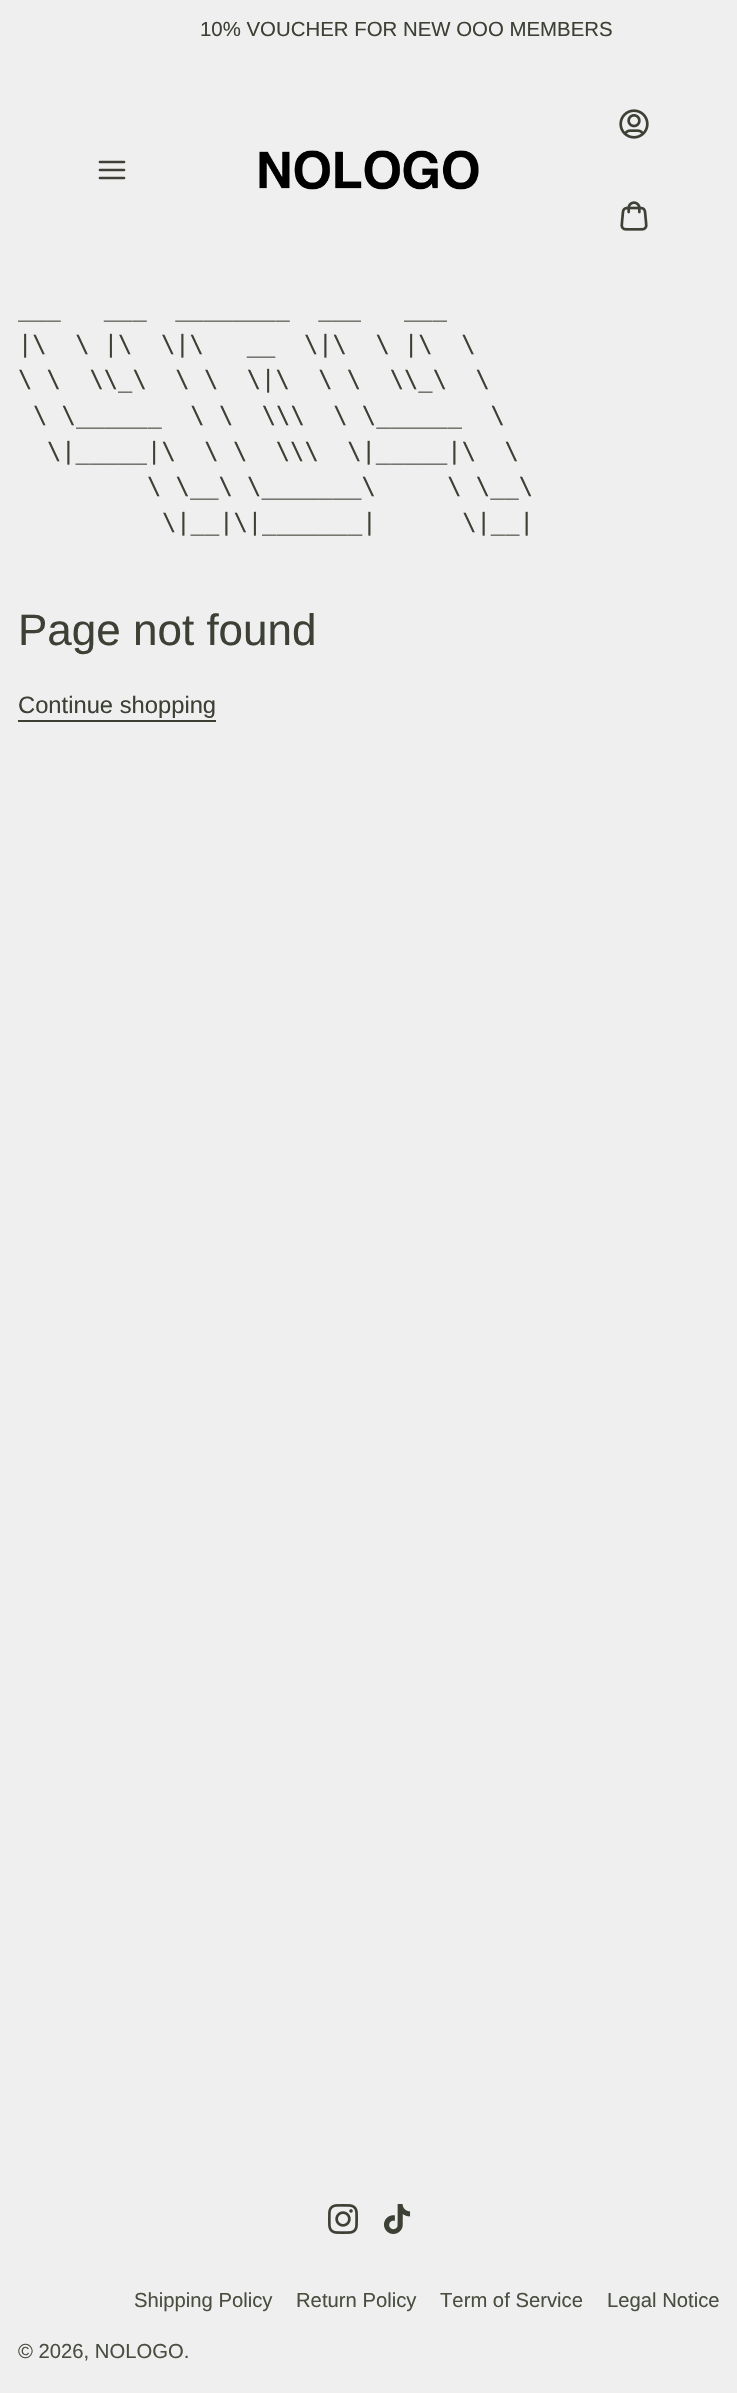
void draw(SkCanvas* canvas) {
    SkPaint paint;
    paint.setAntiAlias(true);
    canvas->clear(0xFFEFEFEF);
    SkFont font1(fontMgr->matchFamilyStyle("Liberation Sans", SkFontStyle::Normal()), 20.4f);
    font1.setSubpixel(true);
    paint.setColor(0xFF3C4035);
    canvas->drawString("10% VOUCHER FOR NEW OOO MEMBERS", 200, 36, font1, paint);
    paint.setStyle(SkPaint::kStroke_Style);
    paint.setStrokeWidth(2.7f);
    paint.setStrokeCap(SkPaint::kRound_Cap);
    paint.setStrokeJoin(SkPaint::kRound_Join);
    canvas->drawPath(SkPathBuilder().moveTo(100, 170).lineTo(124, 170).moveTo(100, 162).lineTo(124, 162).moveTo(100, 178).lineTo(124, 178).detach(), paint);
    canvas->drawImageRect(SkImages::DeferredFromEncodedData(SkData::MakeFromFileName("img1.png")), SkRect::MakeXYWH(259, 150, 220, 40), SkSamplingOptions());
    canvas->drawImageRect(SkImages::DeferredFromEncodedData(SkData::MakeFromFileName("img2.png")), SkRect::MakeXYWH(619, 109, 30, 30), SkSamplingOptions());
    canvas->drawImageRect(SkImages::DeferredFromEncodedData(SkData::MakeFromFileName("img3.png")), SkRect::MakeXYWH(620, 201, 28, 30), SkSamplingOptions());
    SkFont font2(fontMgr->matchFamilyStyle("DejaVu Sans Mono", SkFontStyle::Normal()), 23.75f);
    font2.setSubpixel(true);
    paint.setStyle(SkPaint::kFill_Style);
    canvas->drawString("___   ___  ________  ___   ___", 18, 316, font2, paint);
    canvas->drawString("|\\  \\ |\\  \\|\\   __  \\|\\  \\ |\\  \\", 18, 352, font2, paint);
    canvas->drawString("\\ \\  \\\\_\\  \\ \\  \\|\\  \\ \\  \\\\_\\  \\", 18, 387, font2, paint);
    canvas->drawString("\\ \\______  \\ \\  \\\\\\  \\ \\______  \\", 33, 423, font2, paint);
    canvas->drawString("\\|_____|\\  \\ \\  \\\\\\  \\|_____|\\  \\", 47, 459, font2, paint);
    canvas->drawString("\\ \\__\\ \\_______\\     \\ \\__\\", 147, 494, font2, paint);
    canvas->drawString("\\|__|\\|_______|      \\|__|", 162, 530, font2, paint);
    SkFont font3(fontMgr->matchFamilyStyle("Liberation Sans", SkFontStyle::Normal()), 44);
    font3.setSubpixel(true);
    canvas->drawString("Page not found", 18, 645, font3, paint);
    SkFont font4(fontMgr->matchFamilyStyle("Liberation Sans", SkFontStyle::Normal()), 23.75f);
    font4.setSubpixel(true);
    canvas->drawString("Continue shopping", 18, 713, font4, paint);
    canvas->drawRect(SkRect::MakeXYWH(18, 720, 198, 2), paint);
    canvas->drawImageRect(SkImages::DeferredFromEncodedData(SkData::MakeFromFileName("img4.png")), SkRect::MakeXYWH(328, 2204, 30, 30), SkSamplingOptions());
    canvas->drawImageRect(SkImages::DeferredFromEncodedData(SkData::MakeFromFileName("img5.png")), SkRect::MakeXYWH(384, 2204, 27, 30), SkSamplingOptions());
    SkFont font5(fontMgr->matchFamilyStyle("Liberation Sans", SkFontStyle::Normal()), 20.25f);
    font5.setSubpixel(true);
    paint.setColor(0xFF494E41);
    canvas->drawString("Shipping Policy", 134, 2307, font5, paint);
    canvas->drawString("Return Policy", 296, 2307, font5, paint);
    canvas->drawString("Term of Service", 440, 2307, font5, paint);
    canvas->drawString("Legal Notice", 607, 2307, font5, paint);
    canvas->drawString("© 2026, NOLOGO.", 18, 2358, font5, paint);
}
